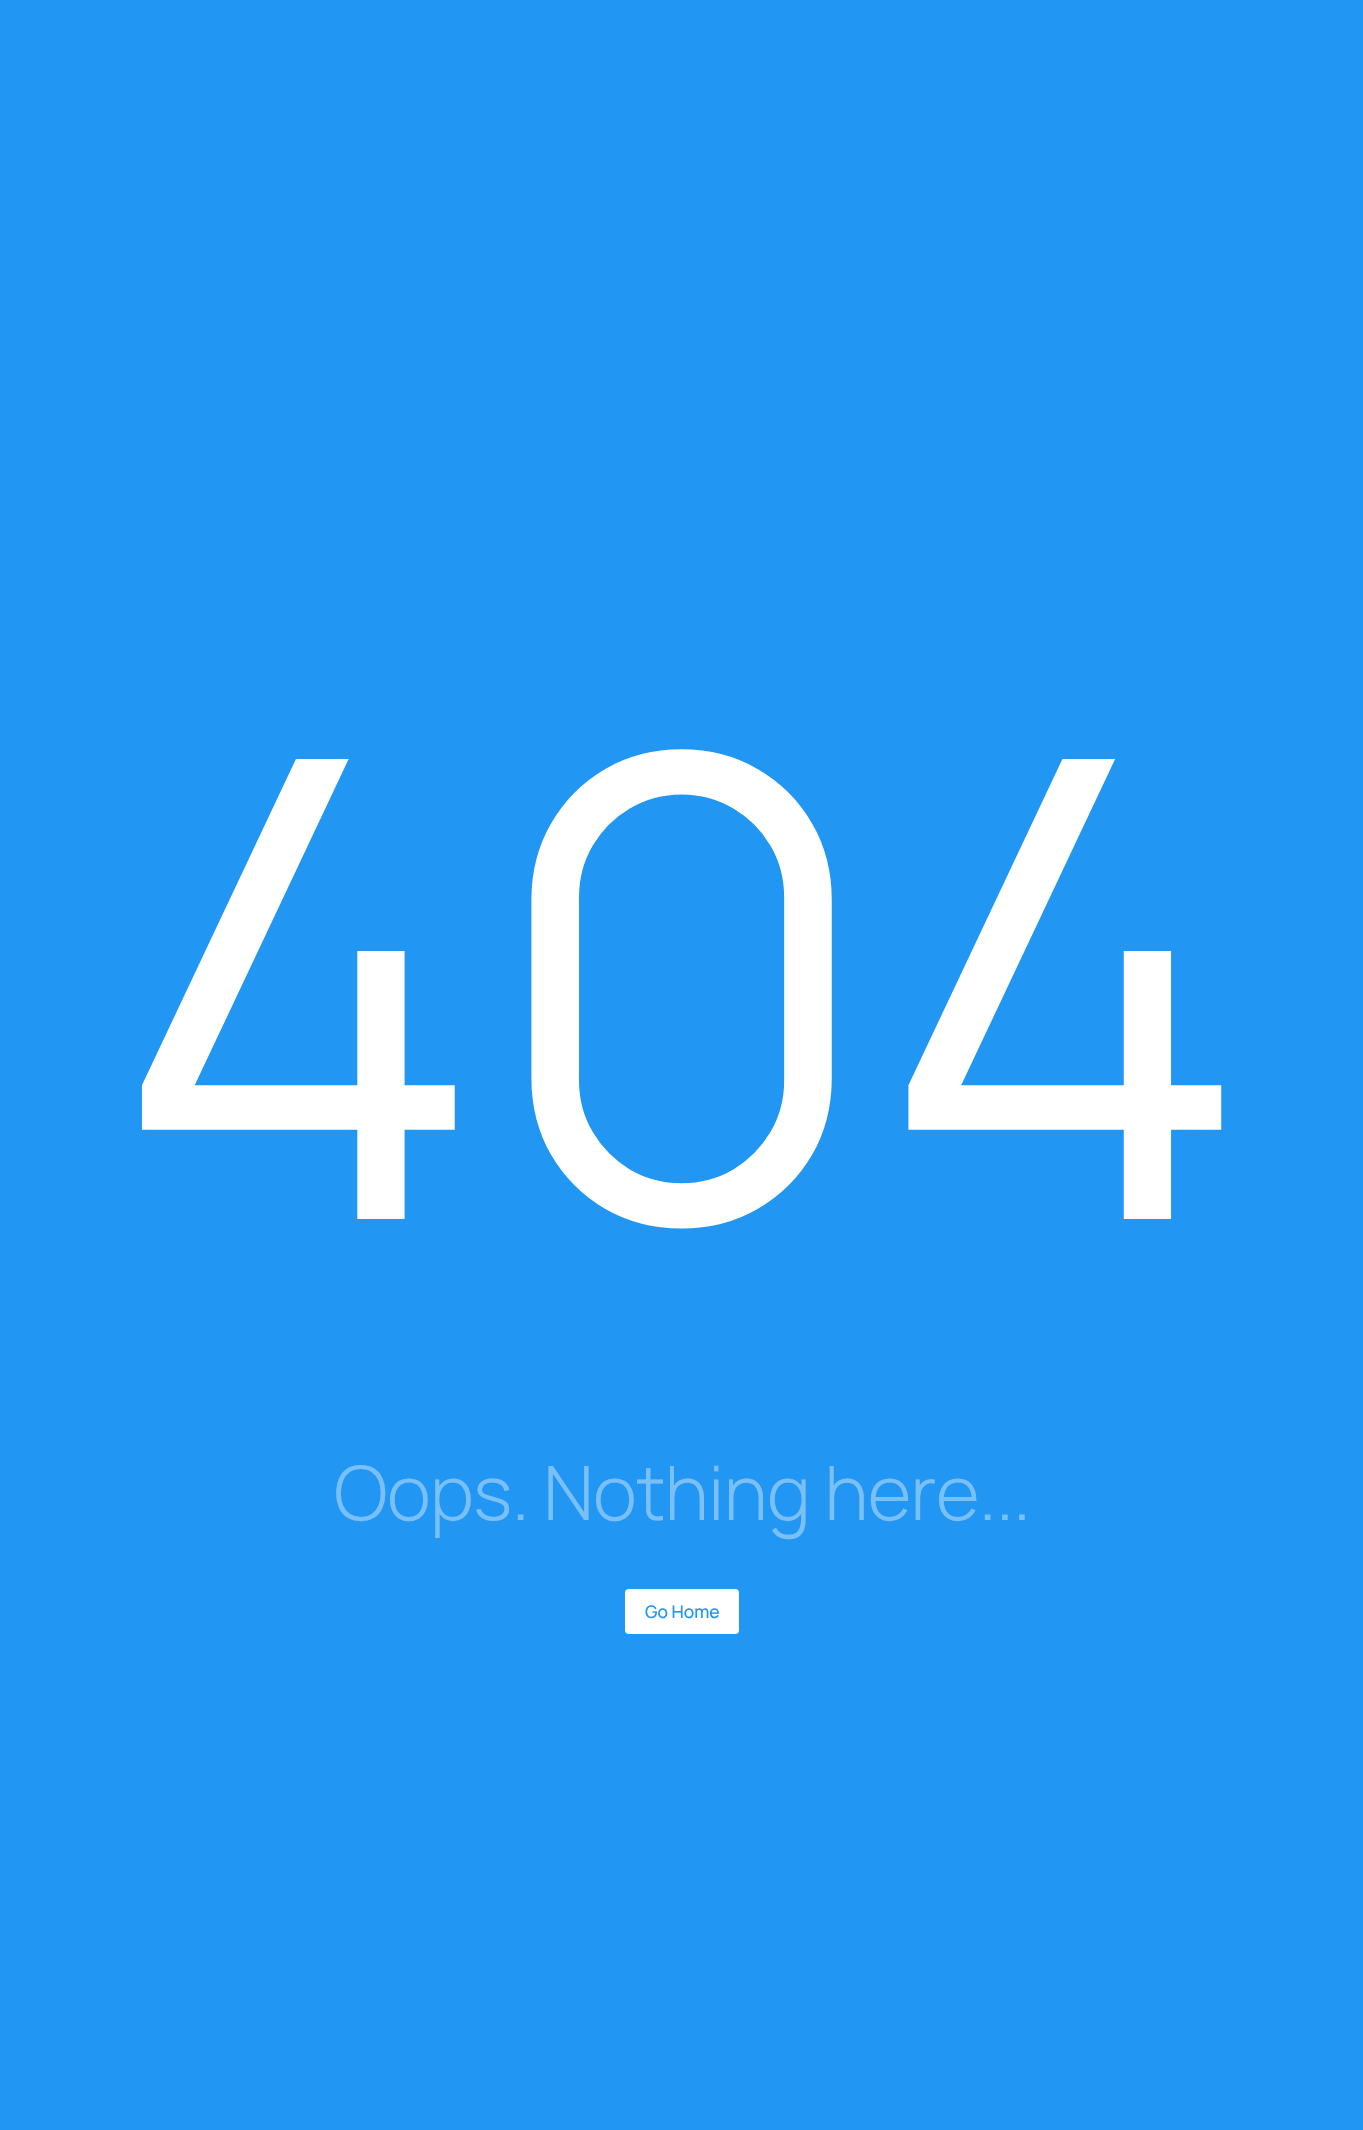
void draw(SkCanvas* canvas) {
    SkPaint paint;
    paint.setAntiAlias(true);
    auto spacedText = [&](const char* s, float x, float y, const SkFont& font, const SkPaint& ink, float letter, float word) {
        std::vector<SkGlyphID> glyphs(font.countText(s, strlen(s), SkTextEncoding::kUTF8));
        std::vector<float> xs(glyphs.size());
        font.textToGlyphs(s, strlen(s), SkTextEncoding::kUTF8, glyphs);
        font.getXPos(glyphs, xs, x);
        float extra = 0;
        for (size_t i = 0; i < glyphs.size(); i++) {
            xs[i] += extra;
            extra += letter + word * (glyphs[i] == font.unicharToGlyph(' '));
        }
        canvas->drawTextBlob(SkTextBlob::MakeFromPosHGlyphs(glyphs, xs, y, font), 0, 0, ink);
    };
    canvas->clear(0xFF2196F3);
    SkFont font1(fontMgr->matchFamilyStyle("Manrope", SkFontStyle::Normal()), 639);
    font1.setSubpixel(true);
    paint.setColor(0xFFFFFFFF);
    canvas->drawString("404", 110, 1219, font1, paint);
    SkFont font2(fontMgr->matchFamilyStyle("Manrope", SkFontStyle(300, SkFontStyle::kNormal_Width, SkFontStyle::kUpright_Slant)), 75);
    font2.setSubpixel(true);
    paint.setColor(0xFF7AC0F8);
    spacedText("Oops. Nothing here...", 334, 1520, font2, paint, -0.6f, 0);
    paint.setColor(0xFFFFFFFF);
    canvas->drawRoundRect(SkRect::MakeXYWH(625, 1589, 114, 45), 4, 4, paint);
    SkFont font3(fontMgr->matchFamilyStyle("Manrope", SkFontStyle(500, SkFontStyle::kNormal_Width, SkFontStyle::kUpright_Slant)), 17.5f);
    font3.setSubpixel(true);
    paint.setColor(0xFF2196F3);
    canvas->drawString("Go Home", 645, 1618, font3, paint);
}
